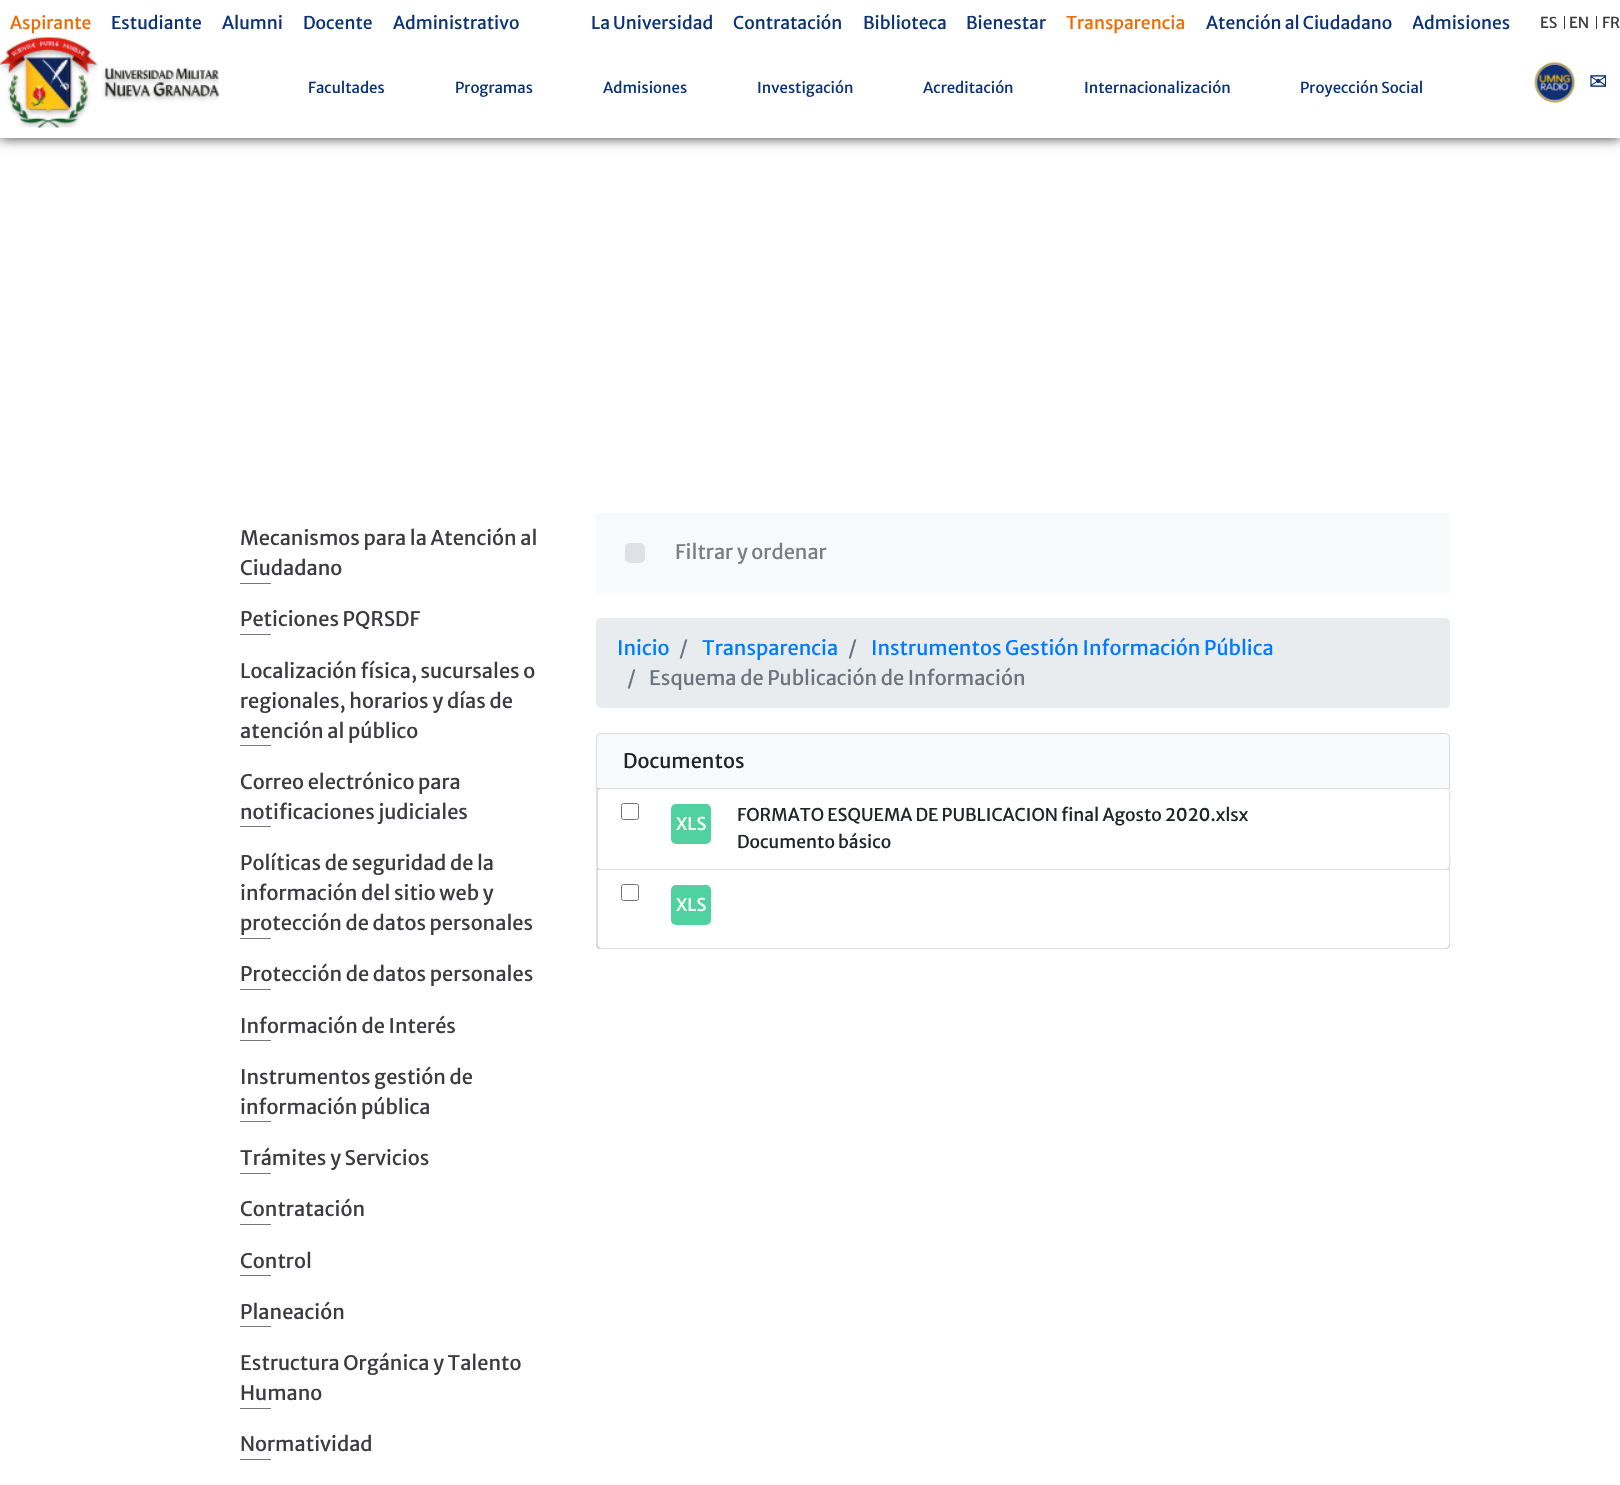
void draw(SkCanvas* canvas) {
    SkPaint paint;
    paint.setAntiAlias(true);
    canvas->clear(0xFFFFFFFF);
    paint.setColor(0xCC000000);
    paint.setMaskFilter(SkMaskFilter::MakeBlur(kNormal_SkBlurStyle, 6));
    canvas->drawRect(SkRect::MakeXYWH(0, 0, 1620, 138), paint);
    paint.setMaskFilter(nullptr);
    paint.setColor(0xFFFFFFFF);
    canvas->drawRect(SkRect::MakeXYWH(0, 0, 1620, 138), paint);
    SkFont font1(fontMgr->matchFamilyStyle("Merriweather Sans", SkFontStyle::Normal()), 17.5f);
    font1.setSubpixel(true);
    paint.setColor(0xFFED6B00);
    canvas->drawString("Aspirante", 10, 29, font1, paint);
    paint.setColor(0xFF0B3377);
    canvas->drawString("Estudiante", 111, 29, font1, paint);
    canvas->drawString("Alumni", 222, 29, font1, paint);
    canvas->drawString("Docente", 303, 29, font1, paint);
    canvas->drawString("Administrativo", 393, 29, font1, paint);
    canvas->drawString("La Universidad", 591, 29, font1, paint);
    canvas->drawString("Contratación", 733, 29, font1, paint);
    canvas->drawString("Biblioteca", 863, 29, font1, paint);
    canvas->drawString("Bienestar", 966, 29, font1, paint);
    paint.setColor(0xFFED6B00);
    canvas->drawString("Transparencia", 1066, 29, font1, paint);
    paint.setColor(0xFF0B3377);
    canvas->drawString("Atención al Ciudadano", 1206, 29, font1, paint);
    canvas->save();
    canvas->clipRect(SkRect::MakeXYWH(1413, 10, 97, 26));
    canvas->drawString("Admisiones", 1412, 29, font1, paint);
    canvas->restore();
    SkFont font2(fontMgr->matchFamilyStyle("Merriweather Sans", SkFontStyle::Normal()), 15);
    font2.setSubpixel(true);
    paint.setColor(0xFF3D3B41);
    canvas->drawString("ES", 1540, 28, font2, paint);
    canvas->drawRect(SkRect::MakeXYWH(1564, 16, 1, 13), paint);
    canvas->drawString("EN", 1569, 28, font2, paint);
    canvas->drawRect(SkRect::MakeXYWH(1596, 16, 1, 13), paint);
    canvas->drawString("FR", 1602, 28, font2, paint);
    canvas->drawImageRect(SkImages::DeferredFromEncodedData(SkData::MakeFromFileName("img1.png")), SkRect::MakeXYWH(0, 37, 219, 91), SkSamplingOptions());
    paint.setColor(0xFF0B3377);
    canvas->drawString("Facultades", 308, 93, font2, paint);
    canvas->drawString("Programas", 455, 93, font2, paint);
    canvas->drawString("Admisiones", 603, 93, font2, paint);
    canvas->drawString("Investigación", 757, 93, font2, paint);
    canvas->drawString("Acreditación", 923, 93, font2, paint);
    canvas->drawString("Internacionalización", 1084, 93, font2, paint);
    canvas->drawString("Proyección Social", 1300, 93, font2, paint);
    canvas->drawImageRect(SkImages::DeferredFromEncodedData(SkData::MakeFromFileName("img2.png")), SkRect::MakeXYWH(1534, 61, 41, 42), SkSamplingOptions());
    SkFont font3(fontMgr->matchFamilyStyle("DejaVu Sans", SkFontStyle::Normal()), 22);
    font3.setSubpixel(true);
    canvas->drawString("✉", 1589, 89, font3, paint);
    SkFont font4(fontMgr->matchFamilyStyle("Merriweather Sans", SkFontStyle::Normal()), 20);
    font4.setSubpixel(true);
    paint.setColor(0xFF3D3B41);
    canvas->drawString("Mecanismos para la Atención al", 240, 545, font4, paint);
    canvas->drawString("Ciudadano", 240, 575, font4, paint);
    paint.setColor(0xFF777679);
    canvas->drawRect(SkRect::MakeXYWH(240, 583, 31, 1), paint);
    paint.setColor(0xFF3D3B41);
    canvas->drawString("Peticiones PQRSDF", 240, 626, font4, paint);
    paint.setColor(0xFF777679);
    canvas->drawRect(SkRect::MakeXYWH(240, 634, 31, 1), paint);
    paint.setColor(0xFF3D3B41);
    canvas->drawString("Localización física, sucursales o", 240, 678, font4, paint);
    canvas->drawString("regionales, horarios y días de", 240, 708, font4, paint);
    canvas->drawString("atención al público", 240, 738, font4, paint);
    paint.setColor(0xFF777679);
    canvas->drawRect(SkRect::MakeXYWH(240, 745, 31, 1), paint);
    paint.setColor(0xFF3D3B41);
    canvas->drawString("Correo electrónico para", 240, 789, font4, paint);
    canvas->drawString("notificaciones judiciales", 240, 819, font4, paint);
    paint.setColor(0xFF777679);
    canvas->drawRect(SkRect::MakeXYWH(240, 826, 31, 1), paint);
    paint.setColor(0xFF3D3B41);
    canvas->drawString("Políticas de seguridad de la", 240, 870, font4, paint);
    canvas->drawString("información del sitio web y", 240, 900, font4, paint);
    canvas->drawString("protección de datos personales", 240, 930, font4, paint);
    paint.setColor(0xFF777679);
    canvas->drawRect(SkRect::MakeXYWH(240, 938, 31, 1), paint);
    paint.setColor(0xFF3D3B41);
    canvas->drawString("Protección de datos personales", 240, 981, font4, paint);
    paint.setColor(0xFF777679);
    canvas->drawRect(SkRect::MakeXYWH(240, 989, 31, 1), paint);
    paint.setColor(0xFF3D3B41);
    canvas->drawString("Información de Interés", 240, 1033, font4, paint);
    paint.setColor(0xFF777679);
    canvas->drawRect(SkRect::MakeXYWH(240, 1040, 31, 1), paint);
    paint.setColor(0xFF3D3B41);
    canvas->drawString("Instrumentos gestión de", 240, 1084, font4, paint);
    canvas->drawString("información pública", 240, 1114, font4, paint);
    paint.setColor(0xFF777679);
    canvas->drawRect(SkRect::MakeXYWH(240, 1121, 31, 1), paint);
    paint.setColor(0xFF3D3B41);
    canvas->drawString("Trámites y Servicios", 240, 1165, font4, paint);
    paint.setColor(0xFF777679);
    canvas->drawRect(SkRect::MakeXYWH(240, 1173, 31, 1), paint);
    paint.setColor(0xFF3D3B41);
    canvas->drawString("Contratación", 240, 1216, font4, paint);
    paint.setColor(0xFF777679);
    canvas->drawRect(SkRect::MakeXYWH(240, 1224, 31, 1), paint);
    paint.setColor(0xFF3D3B41);
    canvas->drawString("Control", 240, 1268, font4, paint);
    paint.setColor(0xFF777679);
    canvas->drawRect(SkRect::MakeXYWH(240, 1275, 31, 1), paint);
    paint.setColor(0xFF3D3B41);
    canvas->drawString("Planeación", 240, 1319, font4, paint);
    paint.setColor(0xFF777679);
    canvas->drawRect(SkRect::MakeXYWH(240, 1326, 31, 1), paint);
    paint.setColor(0xFF3D3B41);
    canvas->drawString("Estructura Orgánica y Talento", 240, 1370, font4, paint);
    canvas->drawString("Humano", 240, 1400, font4, paint);
    paint.setColor(0xFF777679);
    canvas->drawRect(SkRect::MakeXYWH(240, 1408, 31, 1), paint);
    paint.setColor(0xFF3D3B41);
    canvas->drawString("Normatividad", 240, 1451, font4, paint);
    paint.setColor(0xFF777679);
    canvas->drawRect(SkRect::MakeXYWH(240, 1459, 31, 1), paint);
    paint.setColor(0xFFF8F9FA);
    canvas->drawRect(SkRect::MakeXYWH(596, 513, 854, 80), paint);
    paint.setColor(0xFFDEE2E6);
    canvas->drawRoundRect(SkRect::MakeXYWH(625, 543, 20, 20), 5, 5, paint);
    paint.setColor(0xFF7C7D7D);
    canvas->drawString("Filtrar y ordenar", 675, 559, font4, paint);
    paint.setColor(0xFFE9ECEF);
    canvas->drawRoundRect(SkRect::MakeXYWH(596, 618, 854, 90), 5, 5, paint);
    paint.setColor(0xFF007BFF);
    canvas->drawString("Inicio", 617, 655, font4, paint);
    paint.setColor(0xFF6C757D);
    canvas->drawString("/", 679, 655, font4, paint);
    paint.setColor(0xFF007BFF);
    canvas->drawString("Transparencia", 702, 655, font4, paint);
    paint.setColor(0xFF6C757D);
    canvas->drawString("/", 848, 655, font4, paint);
    paint.setColor(0xFF007BFF);
    canvas->drawString("Instrumentos Gestión Información Pública", 871, 655, font4, paint);
    paint.setColor(0xFF6C757D);
    canvas->drawString("/", 627, 685, font4, paint);
    canvas->drawString("Esquema de Publicación de Información", 649, 685, font4, paint);
    paint.setColor(0xFFF8F9FA);
    canvas->drawPath(SkPathBuilder().moveTo(601, 733).lineTo(1445, 733).cubicTo(1448, 733, 1450, 735, 1450, 738).lineTo(1450, 789).lineTo(596, 789).lineTo(596, 738).cubicTo(596, 735, 598, 733, 601, 733).close().detach(), paint);
    paint.setStyle(SkPaint::kStroke_Style);
    paint.setStrokeWidth(1);
    paint.setColor(0x1F000000);
    canvas->drawPath(SkPathBuilder().moveTo(601, 733.5f).lineTo(1445, 733.5f).cubicTo(1447.5f, 733.5f, 1449.5f, 735.5f, 1449.5f, 738).lineTo(1449.5f, 788.5f).lineTo(596.5f, 788.5f).lineTo(596.5f, 738).cubicTo(596.5f, 735.5f, 598.5f, 733.5f, 601, 733.5f).close().detach(), paint);
    paint.setStyle(SkPaint::kFill_Style);
    paint.setColor(0xFF212529);
    canvas->drawString("Documentos", 623, 768, font4, paint);
    paint.setColor(0xFFFFFFFF);
    canvas->drawRoundRect(SkRect::MakeXYWH(596, 788, 854, 82), 5, 5, paint);
    paint.setColor(0xFFDFDFDF);
    canvas->drawPath(SkPathBuilder().moveTo(596, 864).cubicTo(596, 867, 598, 870, 601, 870).lineTo(1445, 870).lineTo(1448, 869).lineTo(1450, 867).lineTo(1450, 864).cubicTo(1450, 867, 1448, 869, 1445, 869).lineTo(601, 869).cubicTo(598, 869, 596, 867, 596, 864).close().detach(), paint);
    paint.setColor(0x1F000000);
    canvas->drawPath(SkPathBuilder().moveTo(601, 789).lineTo(1445, 789).cubicTo(1448, 789, 1450, 791, 1450, 794).cubicTo(1450, 791, 1448, 788, 1445, 788).lineTo(601, 788).lineTo(598, 789).lineTo(596, 791).lineTo(596, 794).cubicTo(596, 791, 598, 789, 601, 789).close().detach(), paint);
    canvas->drawPath(SkPathBuilder().moveTo(1444, 870).cubicTo(1453, 870, 1450, 859, 1450, 853).lineTo(1450, 805).cubicTo(1450, 799, 1453, 788, 1444, 788).cubicTo(1447, 788, 1449, 790, 1449, 792).lineTo(1449, 865).cubicTo(1449, 868, 1447, 870, 1444, 870).close().detach(), paint);
    canvas->drawPath(SkPathBuilder().moveTo(601, 788).cubicTo(598, 788, 596, 790, 596, 793).lineTo(596, 865).cubicTo(596, 868, 598, 870, 601, 870).lineTo(602, 870).cubicTo(600, 870, 598, 868, 598, 865).lineTo(598, 792).cubicTo(598, 790, 600, 788, 602, 788).close().detach(), paint);
    paint.setStyle(SkPaint::kStroke_Style);
    paint.setColor(0xFF767676);
    canvas->drawRoundRect(SkRect::MakeXYWH(621.5f, 803.5f, 17, 16), 2, 2, paint);
    paint.setStyle(SkPaint::kFill_Style);
    paint.setColor(0xFF50D2A0);
    canvas->drawRoundRect(SkRect::MakeXYWH(671, 804, 40, 40), 5, 5, paint);
    paint.setColor(0xFFFFFFFF);
    canvas->drawString("XLS", 676, 830, font1, paint);
    paint.setColor(0xFF212529);
    canvas->drawString("FORMATO ESQUEMA DE PUBLICACION final Agosto 2020.xlsx", 737, 821, font1, paint);
    canvas->drawString("Documento básico", 737, 848, font1, paint);
    paint.setColor(0xFFFFFFFF);
    canvas->drawPath(SkPathBuilder().moveTo(596, 869).lineTo(1450, 869).lineTo(1450, 944).cubicTo(1450, 947, 1448, 949, 1445, 949).lineTo(601, 949).cubicTo(598, 949, 596, 947, 596, 944).close().detach(), paint);
    paint.setColor(0xFFDFDFDF);
    canvas->drawPath(SkPathBuilder().moveTo(596, 942).lineTo(596, 944).cubicTo(596, 947, 598, 949, 601, 949).lineTo(1445, 949).cubicTo(1448, 949, 1450, 947, 1450, 944).lineTo(1450, 942).cubicTo(1450, 945, 1448, 948, 1445, 948).lineTo(601, 948).cubicTo(598, 948, 596, 945, 596, 942).close().detach(), paint);
    canvas->drawRect(SkRect::MakeXYWH(596, 869, 854, 1), paint);
    paint.setColor(0x1F000000);
    canvas->drawPath(SkPathBuilder().moveTo(1444, 949).lineTo(1445, 949).cubicTo(1448, 949, 1450, 947, 1450, 944).lineTo(1450, 869).lineTo(1449, 869).lineTo(1449, 944).cubicTo(1449, 947, 1447, 949, 1444, 949).close().detach(), paint);
    canvas->drawPath(SkPathBuilder().moveTo(596, 869).lineTo(596, 944).cubicTo(596, 947, 598, 949, 601, 949).lineTo(602, 949).cubicTo(600, 949, 598, 947, 598, 944).lineTo(598, 869).close().detach(), paint);
    paint.setStyle(SkPaint::kStroke_Style);
    paint.setColor(0xFF767676);
    canvas->drawRoundRect(SkRect::MakeXYWH(621.5f, 884.5f, 17, 16), 2, 2, paint);
    paint.setStyle(SkPaint::kFill_Style);
    paint.setColor(0xFF50D2A0);
    canvas->drawRoundRect(SkRect::MakeXYWH(671, 885, 40, 40), 5, 5, paint);
    paint.setColor(0xFFFFFFFF);
    canvas->drawString("XLS", 676, 911, font1, paint);
}
